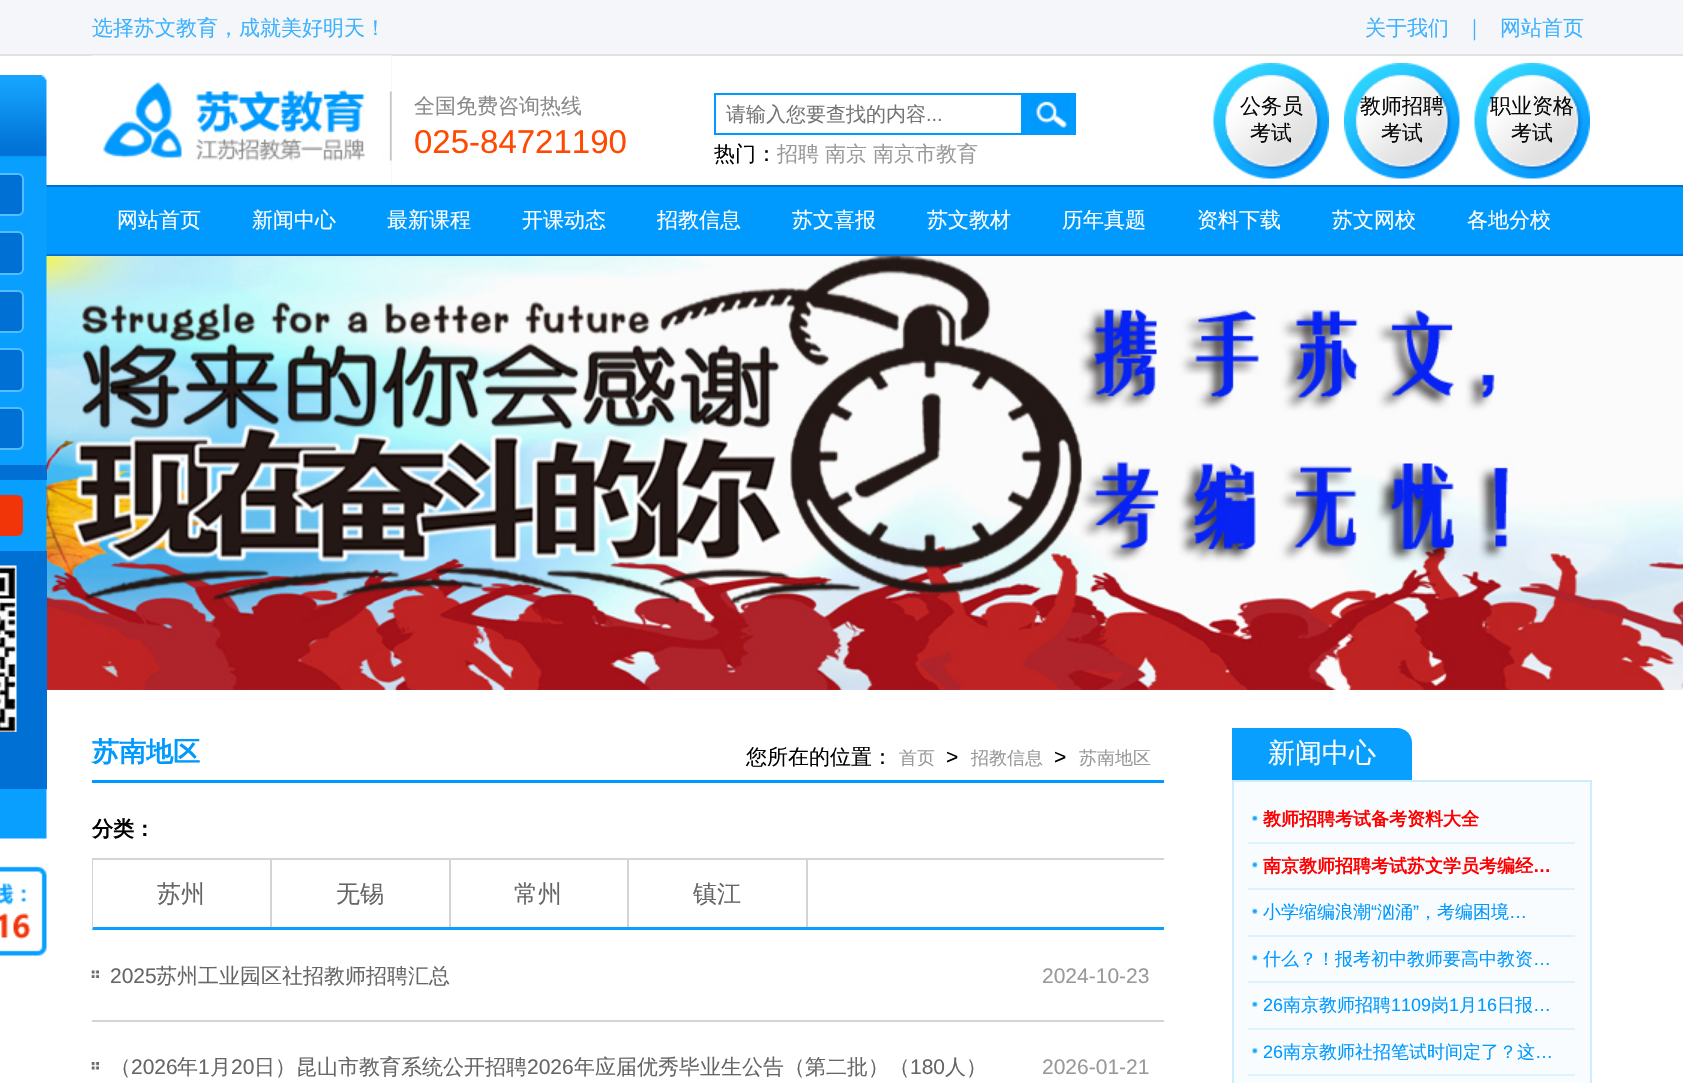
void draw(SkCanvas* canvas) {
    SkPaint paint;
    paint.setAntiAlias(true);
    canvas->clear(0xFFFFFFFF);
    paint.setColor(0xFF0099FE);
    canvas->drawRect(SkRect::MakeXYWH(46, 187, 1637, 67), paint);
    paint.setColor(0xFF0070D5);
    canvas->drawRect(SkRect::MakeXYWH(46, 185, 1637, 2), paint);
    canvas->drawRect(SkRect::MakeXYWH(46, 254, 1637, 2), paint);
    canvas->drawImageRect(SkImages::DeferredFromEncodedData(SkData::MakeFromFileName("img9.png")), SkRect::MakeXYWH(46, 256, 1637, 434), SkSamplingOptions());
    canvas->drawImageRect(SkImages::DeferredFromEncodedData(SkData::MakeFromFileName("img1.png")), SkRect::MakeXYWH(0, 75, 47, 764), SkSamplingOptions());
    canvas->drawRoundRect(SkRect::MakeXYWH(-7, 174, 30, 41), 5, 5, paint);
    paint.setStyle(SkPaint::kStroke_Style);
    paint.setStrokeWidth(2);
    paint.setColor(0xFF54BDFF);
    canvas->drawRoundRect(SkRect::MakeXYWH(-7, 174, 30, 41), 5, 5, paint);
    paint.setStyle(SkPaint::kFill_Style);
    paint.setColor(0xFF0070D5);
    canvas->drawRoundRect(SkRect::MakeXYWH(-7, 232, 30, 42), 5, 5, paint);
    paint.setStyle(SkPaint::kStroke_Style);
    paint.setColor(0xFF54BDFF);
    canvas->drawRoundRect(SkRect::MakeXYWH(-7, 232, 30, 42), 5, 5, paint);
    paint.setStyle(SkPaint::kFill_Style);
    paint.setColor(0xFF0070D5);
    canvas->drawRoundRect(SkRect::MakeXYWH(-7, 291, 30, 41), 5, 5, paint);
    paint.setStyle(SkPaint::kStroke_Style);
    paint.setColor(0xFF54BDFF);
    canvas->drawRoundRect(SkRect::MakeXYWH(-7, 291, 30, 41), 5, 5, paint);
    paint.setStyle(SkPaint::kFill_Style);
    paint.setColor(0xFF0070D5);
    canvas->drawRoundRect(SkRect::MakeXYWH(-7, 349, 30, 42), 5, 5, paint);
    paint.setStyle(SkPaint::kStroke_Style);
    paint.setColor(0xFF54BDFF);
    canvas->drawRoundRect(SkRect::MakeXYWH(-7, 349, 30, 42), 5, 5, paint);
    paint.setStyle(SkPaint::kFill_Style);
    paint.setColor(0xFF0070D5);
    canvas->drawRoundRect(SkRect::MakeXYWH(-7, 408, 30, 41), 5, 5, paint);
    paint.setStyle(SkPaint::kStroke_Style);
    paint.setColor(0xFF54BDFF);
    canvas->drawRoundRect(SkRect::MakeXYWH(-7, 408, 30, 41), 5, 5, paint);
    paint.setStyle(SkPaint::kFill_Style);
    paint.setColor(0xFF0070D5);
    canvas->drawRect(SkRect::MakeXYWH(0, 465, 47, 15), paint);
    paint.setColor(0xFFF13509);
    canvas->drawRoundRect(SkRect::MakeXYWH(-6, 495, 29, 41), 6, 6, paint);
    paint.setColor(0xFF0070D5);
    canvas->drawRect(SkRect::MakeXYWH(0, 551, 47, 238), paint);
    canvas->drawImageRect(SkImages::DeferredFromEncodedData(SkData::MakeFromFileName("img2.png")), SkRect::MakeXYWH(0, 565, 17, 167), SkSamplingOptions());
    canvas->drawImageRect(SkImages::DeferredFromEncodedData(SkData::MakeFromFileName("img3.png")), SkRect::MakeXYWH(0, 866, 47, 90), SkSamplingOptions());
    paint.setColor(0xFFF4F6F9);
    canvas->drawRect(SkRect::MakeXYWH(0, 0, 1683, 54), paint);
    paint.setColor(0xFFE0E1E0);
    canvas->drawRect(SkRect::MakeXYWH(0, 54, 1683, 2), paint);
    SkFont font1(fontMgr->matchFamilyStyle("WenQuanYi Zen Hei", SkFontStyle(500, SkFontStyle::kNormal_Width, SkFontStyle::kUpright_Slant)), 21);
    font1.setSubpixel(true);
    paint.setColor(0xFF3EB2FF);
    canvas->drawString("选择苏文教育，成就美好明天！", 92, 35, font1, paint);
    canvas->drawString("关于我们", 1365, 35, font1, paint);
    canvas->drawString("｜", 1464, 35, font1, paint);
    canvas->drawString("网站首页", 1500, 35, font1, paint);
    paint.setColor(0xFFEEEEEE);
    canvas->drawRect(SkRect::MakeXYWH(92, 56, 300, 129), paint);
    canvas->drawImageRect(SkImages::DeferredFromEncodedData(SkData::MakeFromFileName("img4.png")), SkRect::MakeXYWH(91, 55, 301, 130), SkSamplingOptions());
    paint.setColor(0xFF8A8A8A);
    canvas->drawString("全国免费咨询热线", 414, 113, font1, paint);
    SkFont font2(fontMgr->matchFamilyStyle("Liberation Sans", SkFontStyle::Normal()), 33);
    font2.setSubpixel(true);
    paint.setColor(0xFFFF4800);
    canvas->drawString("025-84721190", 414, 153, font2, paint);
    paint.setStyle(SkPaint::kStroke_Style);
    paint.setColor(0xFF0099FE);
    canvas->drawRect(SkRect::MakeXYWH(715, 94, 307, 40), paint);
    SkFont font3(fontMgr->matchFamilyStyle("WenQuanYi Zen Hei", SkFontStyle(500, SkFontStyle::kNormal_Width, SkFontStyle::kUpright_Slant)), 20);
    font3.setSubpixel(true);
    paint.setStyle(SkPaint::kFill_Style);
    paint.setColor(0xFF757575);
    canvas->drawString("请输入您要查找的内容", 726, 121, font3, paint);
    SkFont font4(fontMgr->matchFamilyStyle("Liberation Sans", SkFontStyle::Normal()), 20);
    font4.setSubpixel(true);
    canvas->drawString("...", 926, 121, font4, paint);
    paint.setColor(0xFF0099FE);
    canvas->drawRect(SkRect::MakeXYWH(1023, 93, 53, 42), paint);
    canvas->drawImageRect(SkImages::DeferredFromEncodedData(SkData::MakeFromFileName("img5.png")), SkRect::MakeXYWH(1027, 95, 46, 40), SkSamplingOptions());
    paint.setColor(0xFF000000);
    canvas->drawString("热门：", 714, 161, font1, paint);
    paint.setColor(0xFF999999);
    canvas->drawString("招聘", 777, 161, font1, paint);
    canvas->drawString("南京", 825, 161, font1, paint);
    canvas->drawString("南京市教育", 873, 161, font1, paint);
    canvas->drawImageRect(SkImages::DeferredFromEncodedData(SkData::MakeFromFileName("img6.png")), SkRect::MakeXYWH(1213, 63, 116, 116), SkSamplingOptions());
    paint.setColor(0xFF070707);
    canvas->drawString("公务员", 1240, 113, font1, paint);
    canvas->drawString("考试", 1250, 140, font1, paint);
    canvas->drawImageRect(SkImages::DeferredFromEncodedData(SkData::MakeFromFileName("img7.png")), SkRect::MakeXYWH(1344, 63, 116, 116), SkSamplingOptions());
    canvas->drawString("教师招聘", 1360, 113, font1, paint);
    canvas->drawString("考试", 1381, 140, font1, paint);
    canvas->drawImageRect(SkImages::DeferredFromEncodedData(SkData::MakeFromFileName("img8.png")), SkRect::MakeXYWH(1474, 63, 116, 116), SkSamplingOptions());
    canvas->drawString("职业资格", 1490, 113, font1, paint);
    canvas->drawString("考试", 1511, 140, font1, paint);
    paint.setColor(0xFFFFFFFF);
    canvas->drawString("网站首页", 117, 227, font1, paint);
    canvas->drawString("新闻中心", 252, 227, font1, paint);
    canvas->drawString("最新课程", 387, 227, font1, paint);
    canvas->drawString("开课动态", 522, 227, font1, paint);
    canvas->drawString("招教信息", 657, 227, font1, paint);
    canvas->drawString("苏文喜报", 792, 227, font1, paint);
    canvas->drawString("苏文教材", 927, 227, font1, paint);
    canvas->drawString("历年真题", 1062, 227, font1, paint);
    canvas->drawString("资料下载", 1197, 227, font1, paint);
    canvas->drawString("苏文网校", 1332, 227, font1, paint);
    canvas->drawString("各地分校", 1467, 227, font1, paint);
    SkFont font5(fontMgr->matchFamilyStyle("WenQuanYi Zen Hei", SkFontStyle::Bold()), 27);
    font5.setSubpixel(true);
    paint.setColor(0xFF0099FE);
    canvas->drawString("苏南地区", 92, 761, font5, paint);
    paint.setColor(0xFF000000);
    canvas->drawString("您所在的位置：", 746, 764, font1, paint);
    SkFont font6(fontMgr->matchFamilyStyle("WenQuanYi Zen Hei", SkFontStyle(500, SkFontStyle::kNormal_Width, SkFontStyle::kUpright_Slant)), 18);
    font6.setSubpixel(true);
    paint.setColor(0xFF999999);
    canvas->drawString("首页", 899, 764, font6, paint);
    SkFont font7(fontMgr->matchFamilyStyle("Liberation Sans", SkFontStyle::Normal()), 21);
    font7.setSubpixel(true);
    paint.setColor(0xFF000000);
    canvas->drawString(">", 946, 764, font7, paint);
    paint.setColor(0xFF999999);
    canvas->drawString("招教信息", 971, 764, font6, paint);
    paint.setColor(0xFF000000);
    canvas->drawString(">", 1054, 764, font7, paint);
    paint.setColor(0xFF999999);
    canvas->drawString("苏南地区", 1079, 764, font6, paint);
    paint.setColor(0xFF0099FE);
    canvas->drawRect(SkRect::MakeXYWH(92, 780, 1072, 3), paint);
    SkFont font8(fontMgr->matchFamilyStyle("WenQuanYi Zen Hei", SkFontStyle::Bold()), 21);
    font8.setSubpixel(true);
    paint.setColor(0xFF000000);
    canvas->drawString("分类：", 92, 836, font8, paint);
    paint.setColor(0xFFD4D4D4);
    canvas->drawRect(SkRect::MakeXYWH(92, 858, 1072, 2), paint);
    paint.setColor(0xFF089FFF);
    canvas->drawPath(SkPathBuilder().moveTo(1164, 930).lineTo(92, 930).lineTo(93, 927).lineTo(1164, 927).close().detach(), paint);
    paint.setColor(0xFFD4D4D4);
    canvas->drawPath(SkPathBuilder().moveTo(92, 930).lineTo(92, 858).lineTo(93, 860).lineTo(93, 927).close().detach(), paint);
    canvas->drawRect(SkRect::MakeXYWH(270, 860, 2, 67), paint);
    SkFont font9(fontMgr->matchFamilyStyle("WenQuanYi Zen Hei", SkFontStyle(500, SkFontStyle::kNormal_Width, SkFontStyle::kUpright_Slant)), 24);
    font9.setSubpixel(true);
    paint.setColor(0xFF666666);
    canvas->drawString("苏州", 157, 902, font9, paint);
    paint.setColor(0xFFD4D4D4);
    canvas->drawRect(SkRect::MakeXYWH(449, 860, 2, 67), paint);
    paint.setColor(0xFF666666);
    canvas->drawString("无锡", 336, 902, font9, paint);
    paint.setColor(0xFFD4D4D4);
    canvas->drawRect(SkRect::MakeXYWH(627, 860, 2, 67), paint);
    paint.setColor(0xFF666666);
    canvas->drawString("常州", 514, 902, font9, paint);
    paint.setColor(0xFFD4D4D4);
    canvas->drawRect(SkRect::MakeXYWH(806, 860, 2, 67), paint);
    paint.setColor(0xFF666666);
    canvas->drawString("镇江", 693, 902, font9, paint);
    paint.setColor(0xFFD4D4D4);
    canvas->drawRect(SkRect::MakeXYWH(92, 1020, 1072, 2), paint);
    canvas->drawImageRect(SkImages::DeferredFromEncodedData(SkData::MakeFromFileName("img10.png")), SkRect::MakeXYWH(91, 970, 8, 8), SkSamplingOptions());
    paint.setColor(0xFF666666);
    canvas->drawString("2025", 110, 983, font7, paint);
    canvas->drawString("苏州工业园区社招教师招聘汇总", 156, 983, font1, paint);
    paint.setColor(0xFF999999);
    canvas->drawString("2024-10-23", 1042, 983, font7, paint);
    canvas->drawImageRect(SkImages::DeferredFromEncodedData(SkData::MakeFromFileName("img11.png")), SkRect::MakeXYWH(91, 1062, 8, 8), SkSamplingOptions());
    paint.setColor(0xFF666666);
    canvas->drawString("（", 110, 1074, font1, paint);
    canvas->drawString("2026", 131, 1074, font7, paint);
    canvas->drawString("年", 177, 1074, font1, paint);
    canvas->drawString("1", 198, 1074, font7, paint);
    canvas->drawString("月", 210, 1074, font1, paint);
    canvas->drawString("20", 231, 1074, font7, paint);
    canvas->drawString("日）昆山市教育系统公开招聘", 254, 1074, font1, paint);
    canvas->drawString("2026", 527, 1074, font7, paint);
    canvas->drawString("年应届优秀毕业生公告（第二批）（", 574, 1074, font1, paint);
    canvas->drawString("180", 910, 1074, font7, paint);
    canvas->drawString("人）", 945, 1074, font1, paint);
    paint.setColor(0xFF999999);
    canvas->drawString("2026-01-21", 1042, 1074, font7, paint);
    paint.setColor(0xFF089FFF);
    canvas->drawPath(SkPathBuilder().moveTo(1232, 728).lineTo(1397, 728).cubicTo(1405.5f, 728, 1412, 734.5f, 1412, 743).lineTo(1412, 780).lineTo(1232, 780).close().detach(), paint);
    SkFont font10(fontMgr->matchFamilyStyle("WenQuanYi Zen Hei", SkFontStyle(500, SkFontStyle::kNormal_Width, SkFontStyle::kUpright_Slant)), 27);
    font10.setSubpixel(true);
    paint.setColor(0xFFFFFFFF);
    canvas->drawString("新闻中心", 1268, 762, font10, paint);
    paint.setColor(0xFFF8FCFF);
    canvas->drawRect(SkRect::MakeXYWH(1233, 781, 358, 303), paint);
    paint.setStyle(SkPaint::kStroke_Style);
    paint.setColor(0xFFCEECFF);
    canvas->drawRect(SkRect::MakeXYWH(1233, 781, 358, 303), paint);
    canvas->drawImageRect(SkImages::DeferredFromEncodedData(SkData::MakeFromFileName("img12.png")), SkRect::MakeXYWH(1252, 815, 6, 6), SkSamplingOptions());
    paint.setStyle(SkPaint::kFill_Style);
    paint.setColor(0xFFDDF2FF);
    canvas->drawRect(SkRect::MakeXYWH(1248, 842, 327, 2), paint);
    SkFont font11(fontMgr->matchFamilyStyle("WenQuanYi Zen Hei", SkFontStyle::Bold()), 18);
    font11.setSubpixel(true);
    paint.setColor(0xFFFF0000);
    canvas->drawString("教师招聘考试备考资料大全", 1263, 825, font11, paint);
    canvas->drawImageRect(SkImages::DeferredFromEncodedData(SkData::MakeFromFileName("img13.png")), SkRect::MakeXYWH(1252, 862, 6, 6), SkSamplingOptions());
    paint.setColor(0xFFDDF2FF);
    canvas->drawRect(SkRect::MakeXYWH(1248, 888, 327, 2), paint);
    paint.setColor(0xFFFF0000);
    canvas->drawString("南京教师招聘考试苏文学员考编经", 1263, 872, font11, paint);
    SkFont font12(fontMgr->matchFamilyStyle("Liberation Sans", SkFontStyle::Bold()), 18);
    font12.setSubpixel(true);
    canvas->drawString("…", 1533, 872, font12, paint);
    canvas->drawImageRect(SkImages::DeferredFromEncodedData(SkData::MakeFromFileName("img12.png")), SkRect::MakeXYWH(1252, 908, 6, 6), SkSamplingOptions());
    paint.setColor(0xFFDDF2FF);
    canvas->drawRect(SkRect::MakeXYWH(1248, 935, 327, 2), paint);
    paint.setColor(0xFF0099FE);
    canvas->drawString("小学缩编浪潮", 1263, 918, font6, paint);
    SkFont font13(fontMgr->matchFamilyStyle("Liberation Sans", SkFontStyle::Normal()), 18);
    font13.setSubpixel(true);
    canvas->drawString("“", 1371, 918, font13, paint);
    canvas->drawString("汹涌", 1377, 918, font6, paint);
    canvas->drawString("”", 1413, 918, font13, paint);
    canvas->drawString("，考编困境", 1419, 918, font6, paint);
    canvas->drawString("…", 1509, 918, font13, paint);
    canvas->drawImageRect(SkImages::DeferredFromEncodedData(SkData::MakeFromFileName("img13.png")), SkRect::MakeXYWH(1252, 955, 6, 6), SkSamplingOptions());
    paint.setColor(0xFFDDF2FF);
    canvas->drawRect(SkRect::MakeXYWH(1248, 981, 327, 2), paint);
    paint.setColor(0xFF0099FE);
    canvas->drawString("什么？！报考初中教师要高中教资", 1263, 965, font6, paint);
    canvas->drawString("…", 1533, 965, font13, paint);
    canvas->drawImageRect(SkImages::DeferredFromEncodedData(SkData::MakeFromFileName("img12.png")), SkRect::MakeXYWH(1252, 1001, 6, 6), SkSamplingOptions());
    paint.setColor(0xFFDDF2FF);
    canvas->drawRect(SkRect::MakeXYWH(1248, 1028, 327, 2), paint);
    paint.setColor(0xFF0099FE);
    canvas->drawString("26", 1263, 1011, font13, paint);
    canvas->drawString("南京教师招聘", 1283, 1011, font6, paint);
    canvas->drawString("1109", 1391, 1011, font13, paint);
    canvas->drawString("岗", 1431, 1011, font6, paint);
    canvas->drawString("1", 1449, 1011, font13, paint);
    canvas->drawString("月", 1459, 1011, font6, paint);
    canvas->drawString("16", 1477, 1011, font13, paint);
    canvas->drawString("日报", 1497, 1011, font6, paint);
    canvas->drawString("…", 1533, 1011, font13, paint);
    canvas->drawImageRect(SkImages::DeferredFromEncodedData(SkData::MakeFromFileName("img13.png")), SkRect::MakeXYWH(1252, 1048, 6, 6), SkSamplingOptions());
    paint.setColor(0xFFDDF2FF);
    canvas->drawRect(SkRect::MakeXYWH(1248, 1074, 327, 2), paint);
    paint.setColor(0xFF0099FE);
    canvas->drawString("26", 1263, 1058, font13, paint);
    canvas->drawString("南京教师社招笔试时间定了？这", 1283, 1058, font6, paint);
    canvas->drawString("…", 1535, 1058, font13, paint);
}
